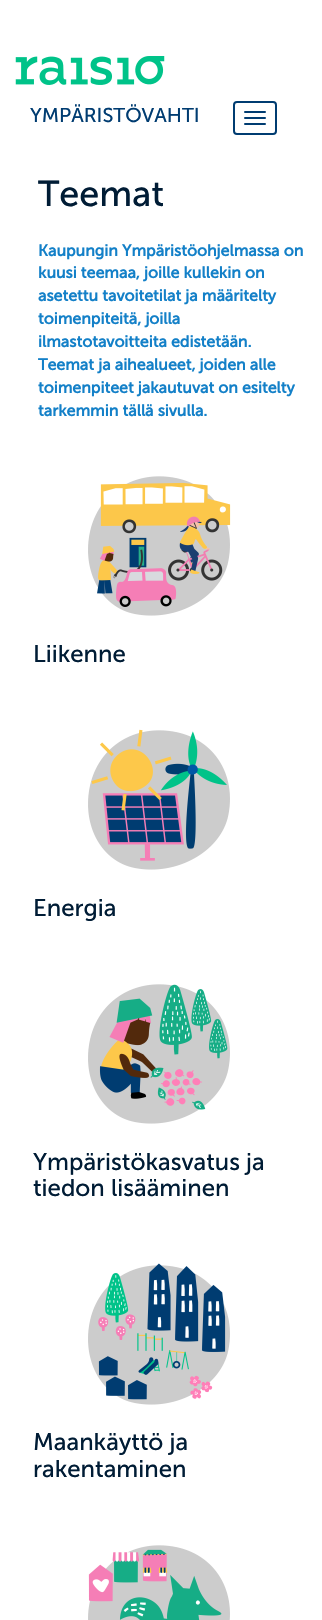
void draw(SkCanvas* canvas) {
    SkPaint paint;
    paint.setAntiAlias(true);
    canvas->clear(0xFFFFFFFF);
    canvas->drawImageRect(SkImages::DeferredFromEncodedData(SkData::MakeFromFileName("img1.png")), SkRect::MakeXYWH(15, 56, 150, 29), SkSamplingOptions());
    SkFont font1(fontMgr->matchFamilyStyle("Museo Sans", SkFontStyle::Normal()), 20);
    font1.setSubpixel(true);
    paint.setColor(0xFF003C71);
    canvas->drawString("YMPÄRISTÖVAHTI", 30, 122, font1, paint);
    paint.setStyle(SkPaint::kStroke_Style);
    paint.setStrokeWidth(2);
    canvas->drawRoundRect(SkRect::MakeXYWH(234, 102, 42, 32), 3, 3, paint);
    paint.setStyle(SkPaint::kFill_Style);
    canvas->drawRoundRect(SkRect::MakeXYWH(244, 111, 22, 2), 1, 1, paint);
    canvas->drawRoundRect(SkRect::MakeXYWH(244, 117, 22, 2), 1, 1, paint);
    canvas->drawRoundRect(SkRect::MakeXYWH(244, 123, 22, 2), 1, 1, paint);
    SkFont font2(fontMgr->matchFamilyStyle("Museo Sans", SkFontStyle::Normal()), 36);
    font2.setSubpixel(true);
    paint.setColor(0xFF001C35);
    canvas->drawString("Teemat", 38, 206, font2, paint);
    SkFont font3(fontMgr->matchFamilyStyle("Museo Sans", SkFontStyle::Bold()), 16);
    font3.setSubpixel(true);
    paint.setColor(0xFF1380C8);
    canvas->drawString("Kaupungin Ympäristöohjelmassa on", 38, 256, font3, paint);
    canvas->drawString("kuusi teemaa, joille kullekin on", 38, 278, font3, paint);
    canvas->drawString("asetettu tavoitetilat ja määritelty", 38, 301, font3, paint);
    canvas->drawString("toimenpiteitä, joilla", 38, 324, font3, paint);
    canvas->drawString("ilmastotavoitteita edistetään.", 38, 347, font3, paint);
    canvas->drawString("Teemat ja aihealueet, joiden alle", 38, 370, font3, paint);
    canvas->drawString("toimenpiteet jakautuvat on esitelty", 38, 393, font3, paint);
    canvas->drawString("tarkemmin tällä sivulla.", 38, 416, font3, paint);
    canvas->drawImageRect(SkImages::DeferredFromEncodedData(SkData::MakeFromFileName("img2.png")), SkRect::MakeXYWH(88, 476, 143, 140), SkSamplingOptions());
    SkFont font4(fontMgr->matchFamilyStyle("Museo Sans", SkFontStyle::Normal()), 24);
    font4.setSubpixel(true);
    paint.setColor(0xFF001C35);
    canvas->drawString("Liikenne", 33, 662, font4, paint);
    canvas->drawImageRect(SkImages::DeferredFromEncodedData(SkData::MakeFromFileName("img3.png")), SkRect::MakeXYWH(88, 729, 142, 141), SkSamplingOptions());
    canvas->drawString("Energia", 33, 916, font4, paint);
    canvas->drawImageRect(SkImages::DeferredFromEncodedData(SkData::MakeFromFileName("img4.png")), SkRect::MakeXYWH(88, 984, 142, 140), SkSamplingOptions());
    canvas->drawString("Ympäristökasvatus ja", 33, 1170, font4, paint);
    canvas->drawString("tiedon lisääminen", 33, 1196, font4, paint);
    canvas->drawImageRect(SkImages::DeferredFromEncodedData(SkData::MakeFromFileName("img5.png")), SkRect::MakeXYWH(88, 1263, 142, 142), SkSamplingOptions());
    canvas->drawString("Maankäyttö ja", 33, 1450, font4, paint);
    canvas->drawString("rakentaminen", 33, 1477, font4, paint);
    canvas->drawImageRect(SkImages::DeferredFromEncodedData(SkData::MakeFromFileName("img6.png")), SkRect::MakeXYWH(88, 1545, 142, 75), SkSamplingOptions());
}
